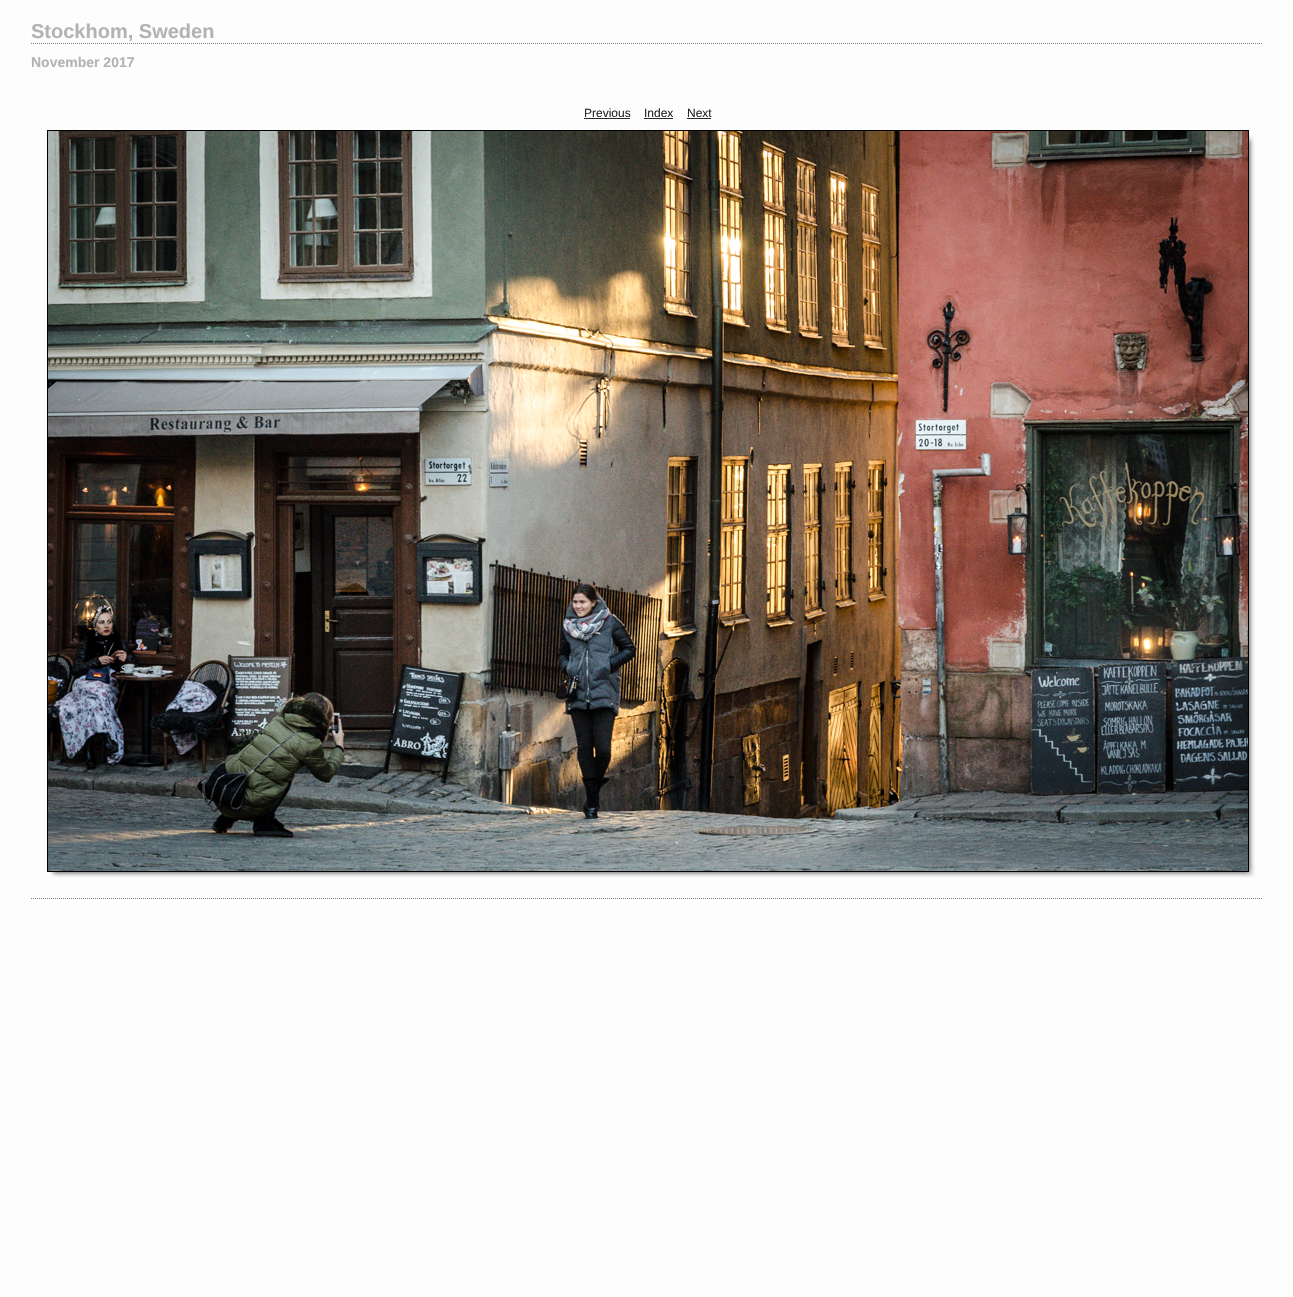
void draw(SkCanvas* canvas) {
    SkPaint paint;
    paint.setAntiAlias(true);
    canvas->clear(0xFFFDFDFD);
    paint.setStyle(SkPaint::kStroke_Style);
    paint.setStrokeWidth(1);
    paint.setColor(0xFF7F7F7F);
    paint.setPathEffect(SkDashPathEffect::Make({{1, 1}}, 0));
    canvas->drawPath(SkPathBuilder().moveTo(31, 43.5f).lineTo(1263, 43.5f).detach(), paint);
    paint.setPathEffect(nullptr);
    SkFont font1(fontMgr->matchFamilyStyle("Liberation Sans", SkFontStyle::Bold()), 20);
    font1.setSubpixel(true);
    paint.setStyle(SkPaint::kFill_Style);
    paint.setColor(0xFFB3B3B3);
    canvas->drawString("Stockhom, Sweden", 31, 38, font1, paint);
    SkFont font2(fontMgr->matchFamilyStyle("Liberation Sans", SkFontStyle::Bold()), 14);
    font2.setSubpixel(true);
    canvas->drawString("November 2017", 31, 67, font2, paint);
    paint.setStyle(SkPaint::kStroke_Style);
    paint.setColor(0xFF7F7F7F);
    paint.setPathEffect(SkDashPathEffect::Make({{1, 1}}, 0));
    canvas->drawPath(SkPathBuilder().moveTo(31, 898.5f).lineTo(1263, 898.5f).detach(), paint);
    paint.setPathEffect(nullptr);
    SkFont font3(fontMgr->matchFamilyStyle("Liberation Sans", SkFontStyle::Normal()), 12);
    font3.setSubpixel(true);
    paint.setStyle(SkPaint::kFill_Style);
    paint.setColor(0xFF282828);
    canvas->drawString("Previous", 584, 117, font3, paint);
    canvas->drawRect(SkRect::MakeXYWH(584, 118, 46, 1), paint);
    canvas->drawString("Index", 644, 117, font3, paint);
    canvas->drawRect(SkRect::MakeXYWH(644, 118, 29, 1), paint);
    canvas->drawString("Next", 687, 117, font3, paint);
    canvas->drawRect(SkRect::MakeXYWH(687, 118, 24, 1), paint);
    canvas->drawImageRect(SkImages::DeferredFromEncodedData(SkData::MakeFromFileName("img1.png")), SkRect::MakeXYWH(57, 143, 1198, 735), SkSamplingOptions());
    paint.setStyle(SkPaint::kStroke_Style);
    paint.setColor(0xFF000000);
    canvas->drawRect(SkRect::MakeXYWH(47.5f, 130.5f, 1201, 741), paint);
    canvas->drawImageRect(SkImages::DeferredFromEncodedData(SkData::MakeFromFileName("img2.png")), SkRect::MakeXYWH(48, 131, 1200, 740), SkSamplingOptions());
    canvas->drawImageRect(SkImages::DeferredFromEncodedData(SkData::MakeFromFileName("img3.png")), SkRect::MakeXYWH(1249, 135, 5, 8), SkSamplingOptions());
    canvas->drawImageRect(SkImages::DeferredFromEncodedData(SkData::MakeFromFileName("img4.png")), SkRect::MakeXYWH(49, 872, 8, 5), SkSamplingOptions());
}
